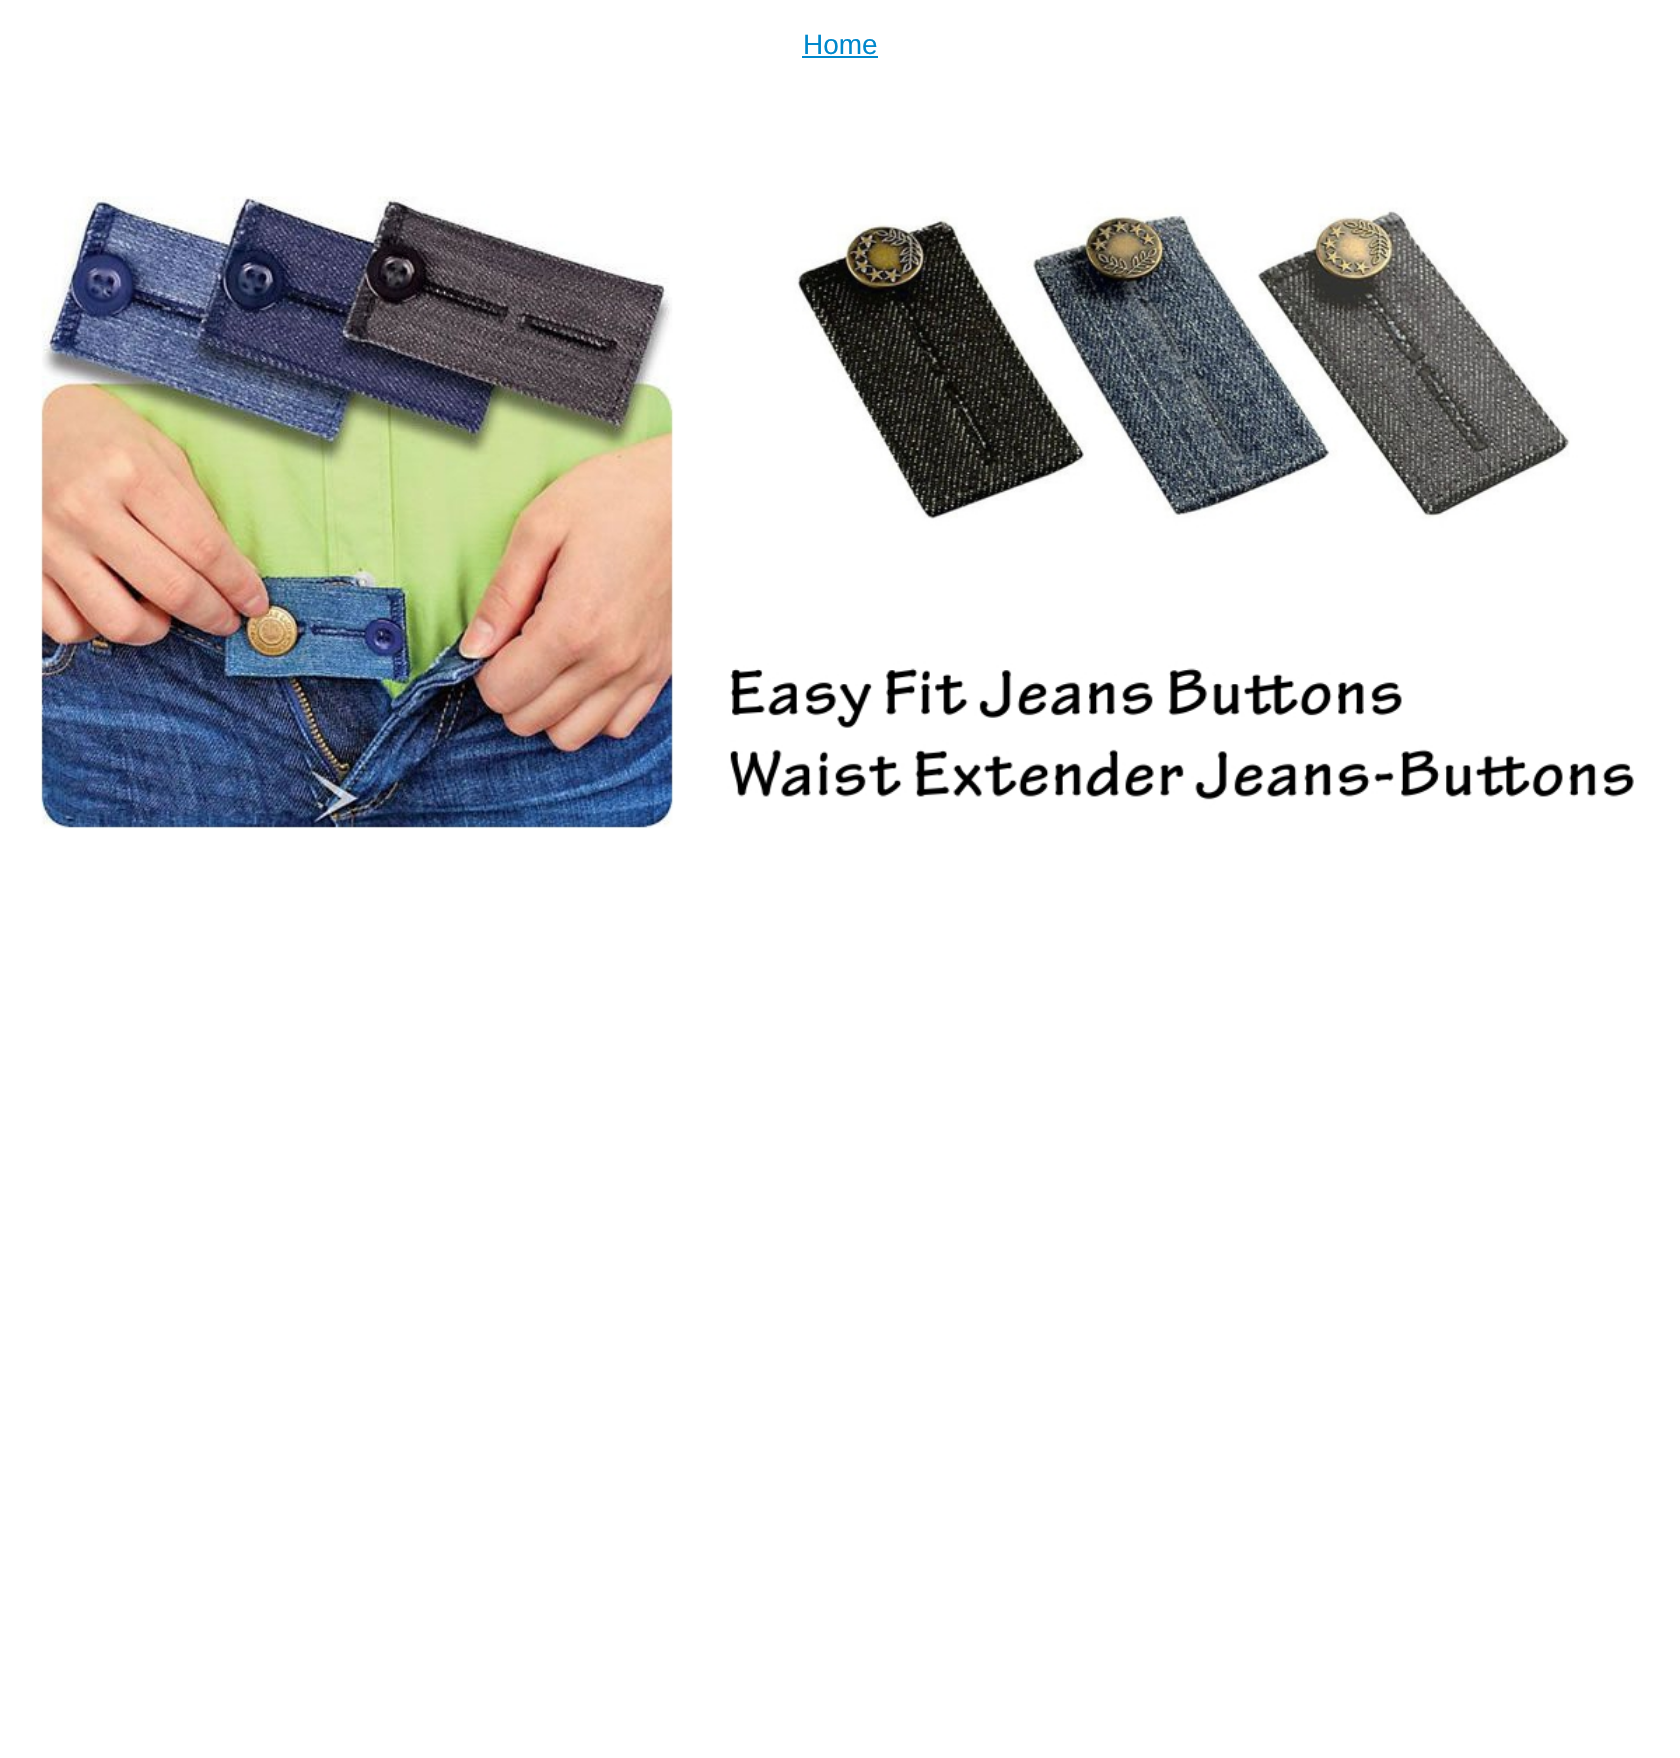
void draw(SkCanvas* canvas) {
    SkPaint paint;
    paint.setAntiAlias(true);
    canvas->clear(0xFFFFFFFF);
    SkFont font1(fontMgr->matchFamilyStyle("Liberation Sans", SkFontStyle::Normal()), 28);
    font1.setSubpixel(true);
    paint.setColor(0xFF0088CC);
    canvas->drawString("Home", 803, 54, font1, paint);
    canvas->drawRect(SkRect::MakeXYWH(802, 56, 76, 2), paint);
    canvas->drawImageRect(SkImages::DeferredFromEncodedData(SkData::MakeFromFileName("img1.png")), SkRect::MakeXYWH(40, 196, 1594, 633), SkSamplingOptions());
}
